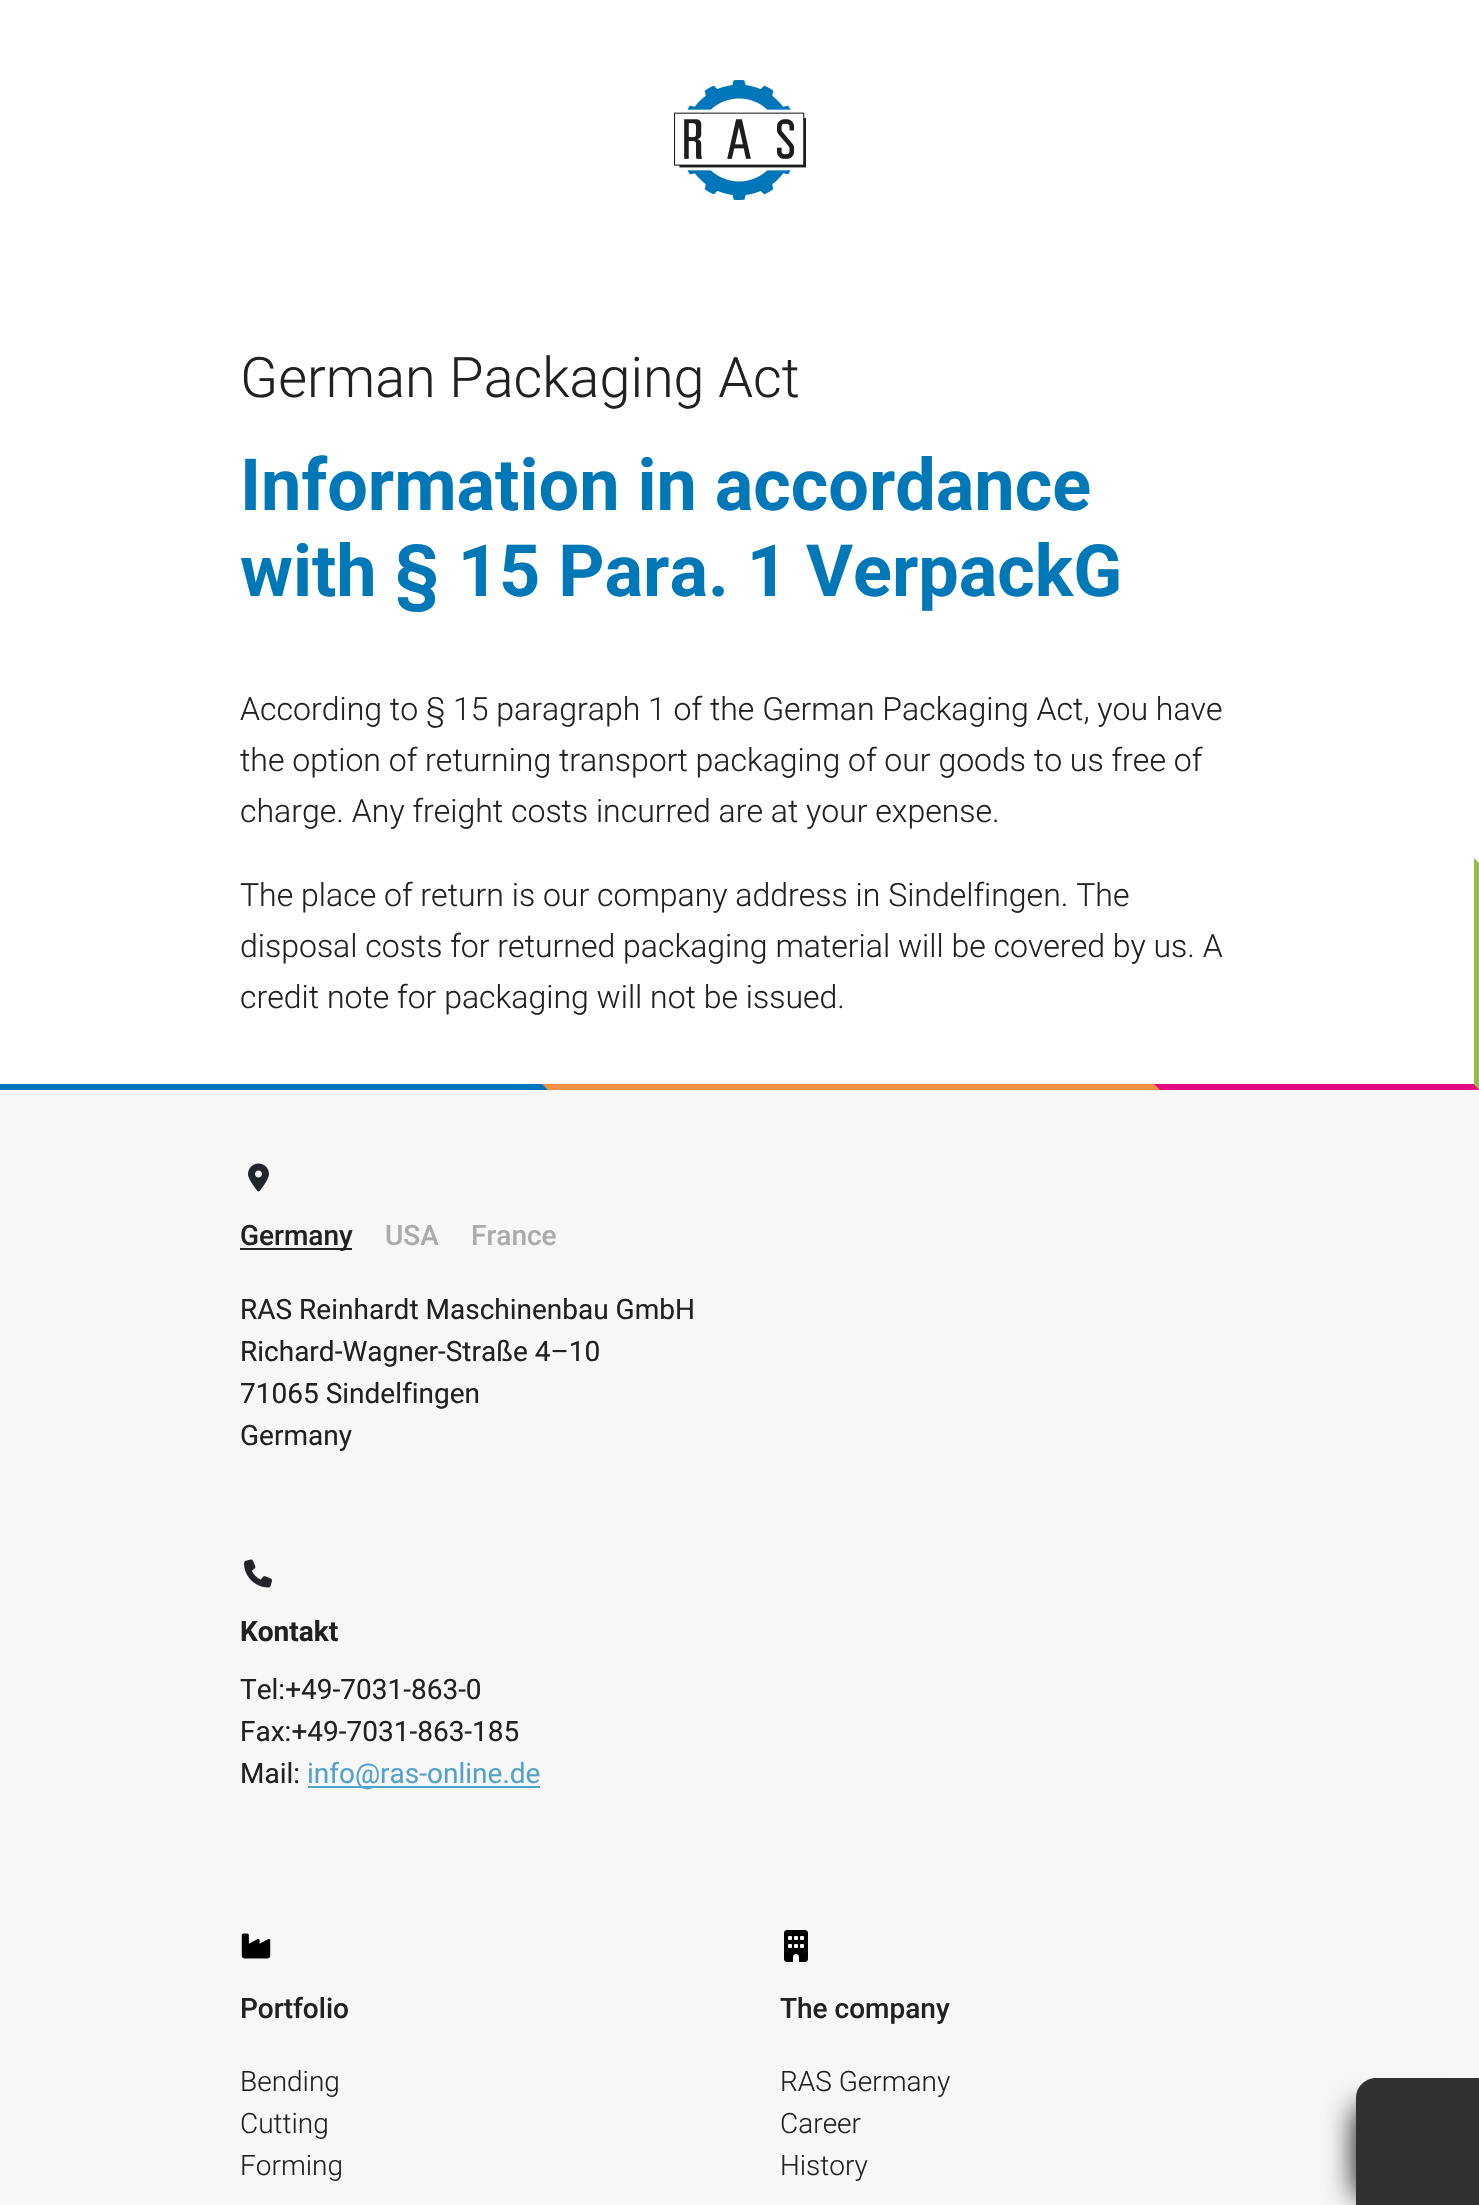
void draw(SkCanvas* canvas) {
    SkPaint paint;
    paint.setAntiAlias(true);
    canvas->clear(0xFFFFFFFF);
    canvas->drawImageRect(SkImages::DeferredFromEncodedData(SkData::MakeFromFileName("img1.png")), SkRect::MakeXYWH(674, 80, 132, 120), SkSamplingOptions());
    paint.setColor(0xFFE20C80);
    canvas->drawPath(SkPathBuilder().moveTo(1145, 1084).lineTo(1474, 1084).lineTo(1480, 1090).lineTo(1150, 1090).close().detach(), paint);
    paint.setColor(0xFFF09246);
    canvas->drawPath(SkPathBuilder().moveTo(536, 1084).lineTo(1154, 1084).lineTo(1160, 1090).lineTo(542, 1090).close().detach(), paint);
    paint.setColor(0xFF0075BA);
    canvas->drawPath(SkPathBuilder().moveTo(-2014, 1084).lineTo(542, 1084).lineTo(548, 1090).lineTo(-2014, 1090).close().detach(), paint);
    paint.setColor(0xFF93BD45);
    canvas->drawPath(SkPathBuilder().moveTo(1474, 858).lineTo(1474, 1084).lineTo(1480, 1090).lineTo(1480, 864).close().detach(), paint);
    SkFont font1(fontMgr->matchFamilyStyle("Roboto", SkFontStyle(300, SkFontStyle::kNormal_Width, SkFontStyle::kUpright_Slant)), 55.75f);
    font1.setSubpixel(true);
    paint.setColor(0xFF212121);
    canvas->drawString("German Packaging Act", 240, 397, font1, paint);
    SkFont font2(fontMgr->matchFamilyStyle("Roboto", SkFontStyle::Bold()), 72);
    font2.setSubpixel(true);
    paint.setColor(0xFF0078B7);
    canvas->drawString("Information in accordance", 240, 510, font2, paint);
    canvas->drawString("with § 15 Para. 1 VerpackG", 240, 596, font2, paint);
    SkFont font3(fontMgr->matchFamilyStyle("Roboto", SkFontStyle(300, SkFontStyle::kNormal_Width, SkFontStyle::kUpright_Slant)), 32);
    font3.setSubpixel(true);
    paint.setColor(0xFF212121);
    canvas->drawString("According to § 15 paragraph 1 of the German Packaging Act, you have", 240, 720, font3, paint);
    canvas->drawString("the option of returning transport packaging of our goods to us free of", 240, 771, font3, paint);
    canvas->drawString("charge. Any freight costs incurred are at your expense.", 240, 822, font3, paint);
    canvas->drawString("The place of return is our company address in Sindelfingen. The", 240, 906, font3, paint);
    canvas->drawString("disposal costs for returned packaging material will be covered by us. A", 240, 957, font3, paint);
    canvas->drawString("credit note for packaging will not be issued.", 240, 1008, font3, paint);
    paint.setColor(0xFFF7F7F7);
    canvas->drawRect(SkRect::MakeXYWH(0, 1090, 1479, 1115), paint);
    canvas->drawImageRect(SkImages::DeferredFromEncodedData(SkData::MakeFromFileName("img2.png")), SkRect::MakeXYWH(248, 1163, 21, 29), SkSamplingOptions());
    paint.setColor(0xFF212121);
    canvas->drawRect(SkRect::MakeXYWH(240, 1248, 112, 2), paint);
    SkFont font4(fontMgr->matchFamilyStyle("Roboto", SkFontStyle(500, SkFontStyle::kNormal_Width, SkFontStyle::kUpright_Slant)), 28);
    font4.setSubpixel(true);
    canvas->drawString("Germany", 240, 1245, font4, paint);
    paint.setColor(0xFFABABAB);
    canvas->drawString("USA", 385, 1245, font4, paint);
    canvas->drawString("France", 471, 1245, font4, paint);
    SkFont font5(fontMgr->matchFamilyStyle("Roboto", SkFontStyle::Normal()), 28);
    font5.setSubpixel(true);
    paint.setColor(0xFF212121);
    canvas->drawString("RAS Reinhardt Maschinenbau GmbH", 240, 1319, font5, paint);
    canvas->drawString("Richard-Wagner-Straße 4–10", 240, 1361, font5, paint);
    canvas->drawString("71065 Sindelfingen", 240, 1403, font5, paint);
    canvas->drawString("Germany", 240, 1445, font5, paint);
    canvas->drawImageRect(SkImages::DeferredFromEncodedData(SkData::MakeFromFileName("img3.png")), SkRect::MakeXYWH(244, 1559, 28, 29), SkSamplingOptions());
    SkFont font6(fontMgr->matchFamilyStyle("Roboto", SkFontStyle::Bold()), 28);
    font6.setSubpixel(true);
    canvas->drawString("Kontakt", 240, 1641, font6, paint);
    canvas->drawString("Tel:+49-7031-863-0", 240, 1699, font5, paint);
    canvas->drawString("Fax:+49-7031-863-185", 240, 1741, font5, paint);
    canvas->drawString("Mail:", 240, 1783, font5, paint);
    paint.setColor(0xFF53A2CA);
    canvas->drawRect(SkRect::MakeXYWH(308, 1786, 232, 2), paint);
    canvas->drawString("info@ras-online.de", 307, 1783, font5, paint);
    canvas->drawImageRect(SkImages::DeferredFromEncodedData(SkData::MakeFromFileName("img4.png")), SkRect::MakeXYWH(241, 1933, 30, 26), SkSamplingOptions());
    paint.setColor(0xFF212121);
    canvas->drawString("Portfolio", 240, 2018, font4, paint);
    SkFont font7(fontMgr->matchFamilyStyle("Roboto", SkFontStyle(300, SkFontStyle::kNormal_Width, SkFontStyle::kUpright_Slant)), 28);
    font7.setSubpixel(true);
    canvas->drawString("Bending", 240, 2091, font7, paint);
    canvas->drawString("Cutting", 240, 2133, font7, paint);
    canvas->drawString("Forming", 240, 2175, font7, paint);
    canvas->drawImageRect(SkImages::DeferredFromEncodedData(SkData::MakeFromFileName("img5.png")), SkRect::MakeXYWH(784, 1930, 24, 32), SkSamplingOptions());
    canvas->drawString("The company", 780, 2018, font4, paint);
    canvas->drawString("RAS Germany", 780, 2091, font7, paint);
    canvas->drawString("Career", 780, 2133, font7, paint);
    canvas->drawString("History", 780, 2175, font7, paint);
    paint.setColor(0xFF000000);
    paint.setMaskFilter(SkMaskFilter::MakeBlur(kNormal_SkBlurStyle, 15));
    canvas->drawRect(SkRect::MakeXYWH(1356, 2108, 84, 88), paint);
    paint.setMaskFilter(nullptr);
    paint.setColor(0xFF313131);
    canvas->drawPath(SkPathBuilder().moveTo(1376, 2078).lineTo(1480, 2078).lineTo(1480, 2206).lineTo(1356, 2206).lineTo(1356, 2098).cubicTo(1356, 2087, 1365, 2078, 1376, 2078).close().detach(), paint);
}
